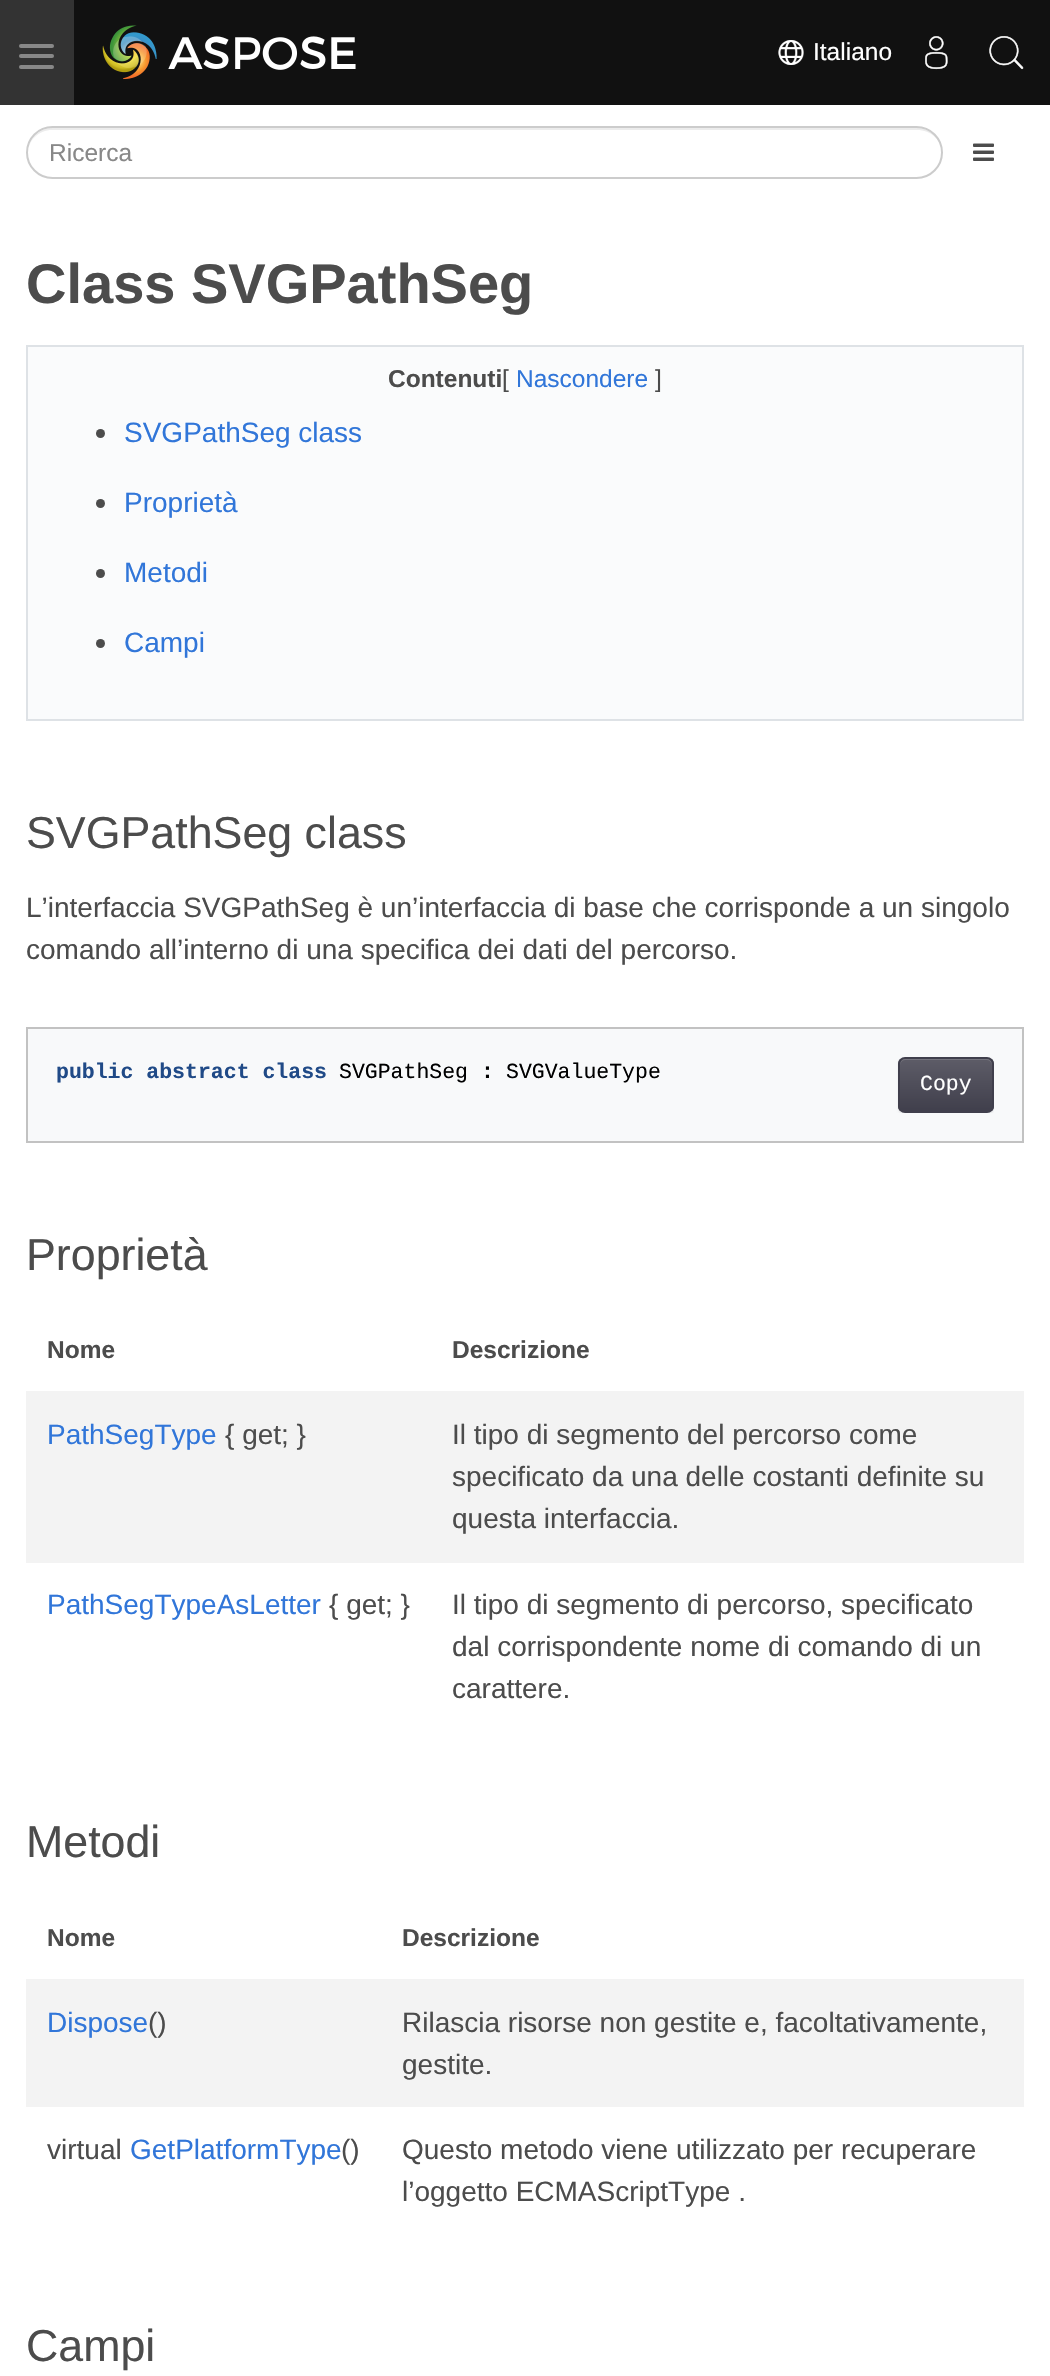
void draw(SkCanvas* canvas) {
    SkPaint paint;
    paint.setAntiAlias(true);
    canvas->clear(0xFFFFFFFF);
    paint.setColor(0xFF111111);
    canvas->drawRect(SkRect::MakeXYWH(74, 0, 976, 105), paint);
    paint.setColor(0xFF333333);
    canvas->drawRect(SkRect::MakeXYWH(0, 0, 74, 105), paint);
    paint.setColor(0xFF888888);
    canvas->drawRoundRect(SkRect::MakeXYWH(19, 44, 35, 4), 2, 2, paint);
    canvas->drawRoundRect(SkRect::MakeXYWH(19, 54, 35, 4), 2, 2, paint);
    canvas->drawRoundRect(SkRect::MakeXYWH(19, 65, 35, 4), 2, 2, paint);
    canvas->drawImageRect(SkImages::DeferredFromEncodedData(SkData::MakeFromFileName("img1.png")), SkRect::MakeXYWH(102, 25, 254, 55), SkSamplingOptions());
    canvas->drawImageRect(SkImages::DeferredFromEncodedData(SkData::MakeFromFileName("img2.png")), SkRect::MakeXYWH(778, 40, 26, 25), SkSamplingOptions());
    SkFont font1(fontMgr->matchFamilyStyle("Liberation Sans", SkFontStyle::Normal()), 24.5f);
    font1.setSubpixel(true);
    paint.setColor(0xFFFFFFFF);
    canvas->drawString("Italiano", 813, 60, font1, paint);
    canvas->drawImageRect(SkImages::DeferredFromEncodedData(SkData::MakeFromFileName("img3.png")), SkRect::MakeXYWH(925, 36, 23, 34), SkSamplingOptions());
    canvas->drawImageRect(SkImages::DeferredFromEncodedData(SkData::MakeFromFileName("img4.png")), SkRect::MakeXYWH(989, 36, 35, 34), SkSamplingOptions());
    paint.setColor(0xFFECECEC);
    canvas->drawPath(SkPathBuilder().moveTo(52, 130).lineTo(917, 130).cubicTo(931, 130, 942, 140, 942, 153).cubicTo(942, 147, 940, 140, 935, 135).cubicTo(930, 131, 924, 128, 918, 128).lineTo(52, 128).cubicTo(39, 128, 28, 140, 28, 153).cubicTo(28, 140, 39, 130, 52, 130).close().detach(), paint);
    paint.setStyle(SkPaint::kStroke_Style);
    paint.setStrokeWidth(2);
    paint.setColor(0xFFCCCCCC);
    canvas->drawRoundRect(SkRect::MakeXYWH(27, 127, 915, 51), 25.5f, 25.5f, paint);
    paint.setStyle(SkPaint::kFill_Style);
    paint.setColor(0xFF888888);
    canvas->drawString("Ricerca", 49, 161, font1, paint);
    canvas->drawImageRect(SkImages::DeferredFromEncodedData(SkData::MakeFromFileName("img5.png")), SkRect::MakeXYWH(973, 143, 21, 18), SkSamplingOptions());
    SkFont font2(fontMgr->matchFamilyStyle("Liberation Sans", SkFontStyle::Bold()), 56);
    font2.setSubpixel(true);
    paint.setColor(0xFF4C4C4C);
    canvas->drawString("Class SVGPathSeg", 26, 303, font2, paint);
    paint.setColor(0xFFFAFBFC);
    canvas->drawRect(SkRect::MakeXYWH(27, 346, 996, 374), paint);
    paint.setStyle(SkPaint::kStroke_Style);
    paint.setColor(0xFFDEE2E6);
    canvas->drawRect(SkRect::MakeXYWH(27, 346, 996, 374), paint);
    SkFont font3(fontMgr->matchFamilyStyle("Liberation Sans", SkFontStyle::Bold()), 24.5f);
    font3.setSubpixel(true);
    paint.setStyle(SkPaint::kFill_Style);
    paint.setColor(0xFF4C4C4C);
    canvas->drawString("Contenuti", 388, 387, font3, paint);
    canvas->drawString("[", 502, 387, font1, paint);
    paint.setColor(0xFF3176D9);
    canvas->drawString("Nascondere", 516, 387, font1, paint);
    paint.setColor(0xFF4C4C4C);
    canvas->drawString("]", 655, 387, font1, paint);
    canvas->drawCircle(100.5f, 433.5f, 4.5f, paint);
    SkFont font4(fontMgr->matchFamilyStyle("Liberation Sans", SkFontStyle::Normal()), 28);
    font4.setSubpixel(true);
    paint.setColor(0xFF3176D9);
    canvas->drawString("SVGPathSeg class", 124, 442, font4, paint);
    paint.setColor(0xFF4C4C4C);
    canvas->drawCircle(100.5f, 503.5f, 4.5f, paint);
    paint.setColor(0xFF3176D9);
    canvas->drawString("Proprietà", 124, 512, font4, paint);
    paint.setColor(0xFF4C4C4C);
    canvas->drawCircle(100.5f, 573.5f, 4.5f, paint);
    paint.setColor(0xFF3176D9);
    canvas->drawString("Metodi", 124, 582, font4, paint);
    paint.setColor(0xFF4C4C4C);
    canvas->drawCircle(100.5f, 643.5f, 4.5f, paint);
    paint.setColor(0xFF3176D9);
    canvas->drawString("Campi", 124, 652, font4, paint);
    SkFont font5(fontMgr->matchFamilyStyle("Liberation Sans", SkFontStyle::Normal()), 44.75f);
    font5.setSubpixel(true);
    paint.setColor(0xFF4C4C4C);
    canvas->drawString("SVGPathSeg class", 26, 848, font5, paint);
    canvas->drawString("L’interfaccia SVGPathSeg è un’interfaccia di base che corrisponde a un singolo", 26, 917, font4, paint);
    canvas->drawString("comando all’interno di una specifica dei dati del percorso.", 26, 959, font4, paint);
    paint.setColor(0xFFF8F9FA);
    canvas->drawRect(SkRect::MakeXYWH(27, 1028, 996, 114), paint);
    paint.setStyle(SkPaint::kStroke_Style);
    paint.setColor(0xFFC2C2C2);
    canvas->drawRect(SkRect::MakeXYWH(27, 1028, 996, 114), paint);
    SkFont font6(fontMgr->matchFamilyStyle("Liberation Mono", SkFontStyle::Bold()), 21.5f);
    font6.setSubpixel(true);
    paint.setStyle(SkPaint::kFill_Style);
    paint.setColor(0xFF204A87);
    canvas->drawString("public abstract class", 56, 1078, font6, paint);
    SkFont font7(fontMgr->matchFamilyStyle("Liberation Mono", SkFontStyle::Normal()), 21.5f);
    font7.setSubpixel(true);
    paint.setColor(0xFF000000);
    canvas->drawString("SVGPathSeg", 339, 1078, font7, paint);
    canvas->drawString(":", 481, 1078, font6, paint);
    canvas->drawString("SVGValueType", 506, 1078, font7, paint);
    canvas->save();
    canvas->clipRect(SkRect::MakeXYWH(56, 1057, 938, 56));
    paint.setColor(0x12000000);
    paint.setMaskFilter(SkMaskFilter::MakeBlur(kNormal_SkBlurStyle, 1));
    canvas->drawRoundRect(SkRect::MakeXYWH(898, 1059, 96, 56), 7, 7, paint);
    paint.setMaskFilter(nullptr);
    canvas->restore();
    canvas->save();
    canvas->clipPath(SkPathBuilder().moveTo(905, 1057).lineTo(987, 1057).cubicTo(991, 1057, 994, 1060, 994, 1064).lineTo(994, 1106).cubicTo(994, 1110, 991, 1113, 987, 1113).lineTo(905, 1113).cubicTo(901, 1113, 898, 1110, 898, 1106).lineTo(898, 1064).cubicTo(898, 1060, 901, 1057, 905, 1057).close().detach(), true);
    {
        const SkColor colors[] = {0xFF5D5C67, 0xFF403F4C};
        const float stops[] = {0, 1};
        const SkPoint ends[] = {{946, 1059}, {946, 1111}};
        paint.setShader(SkGradientShader::MakeLinear(ends, colors, stops, 2, SkTileMode::kClamp));
        paint.setAlpha(255);
    }
    canvas->drawRect(SkRect::MakeXYWH(898, 1059, 96, 52), paint);
    canvas->restore();
    paint.setShader(nullptr);
    paint.setColor(0x26FFFFFF);
    canvas->drawPath(SkPathBuilder().moveTo(905, 1060).lineTo(987, 1060).cubicTo(990, 1060, 992, 1063, 992, 1066).cubicTo(992, 1055, 982, 1059, 973, 1059).lineTo(919, 1059).cubicTo(910, 1059, 900, 1055, 900, 1066).cubicTo(900, 1063, 902, 1060, 905, 1060).close().detach(), paint);
    paint.setStyle(SkPaint::kStroke_Style);
    paint.setColor(0xFF403F4C);
    canvas->drawRoundRect(SkRect::MakeXYWH(899, 1058, 94, 54), 6, 6, paint);
    paint.setStyle(SkPaint::kFill_Style);
    paint.setColor(0xFFFFFFFF);
    canvas->drawString("Copy", 920, 1090, font7, paint);
    paint.setColor(0xFF4C4C4C);
    canvas->drawString("Proprietà", 26, 1270, font5, paint);
    canvas->drawString("Nome", 47, 1358, font3, paint);
    canvas->drawString("Descrizione", 452, 1358, font3, paint);
    paint.setColor(0xFFF3F3F3);
    canvas->drawRect(SkRect::MakeXYWH(26, 1391, 998, 172), paint);
    paint.setColor(0xFF3176D9);
    canvas->drawString("PathSegType", 47, 1444, font4, paint);
    paint.setColor(0xFF4C4C4C);
    canvas->drawString("{ get; }", 225, 1444, font4, paint);
    canvas->drawString("Il tipo di segmento del percorso come", 452, 1444, font4, paint);
    canvas->drawString("specificato da una delle costanti definite su", 452, 1486, font4, paint);
    canvas->drawString("questa interfaccia.", 452, 1528, font4, paint);
    paint.setColor(0xFF3176D9);
    canvas->drawString("PathSegTypeAsLetter", 47, 1614, font4, paint);
    paint.setColor(0xFF4C4C4C);
    canvas->drawString("{ get; }", 329, 1614, font4, paint);
    canvas->drawString("Il tipo di segmento di percorso, specificato", 452, 1614, font4, paint);
    canvas->drawString("dal corrispondente nome di comando di un", 452, 1656, font4, paint);
    canvas->drawString("carattere.", 452, 1698, font4, paint);
    canvas->drawString("Metodi", 26, 1857, font5, paint);
    canvas->drawString("Nome", 47, 1946, font3, paint);
    canvas->drawString("Descrizione", 402, 1946, font3, paint);
    paint.setColor(0xFFF3F3F3);
    canvas->drawRect(SkRect::MakeXYWH(26, 1979, 998, 128), paint);
    paint.setColor(0xFF3176D9);
    canvas->drawString("Dispose", 47, 2032, font4, paint);
    paint.setColor(0xFF4C4C4C);
    canvas->drawString("()", 148, 2032, font4, paint);
    canvas->drawString("Rilascia risorse non gestite e, facoltativamente,", 402, 2032, font4, paint);
    canvas->drawString("gestite.", 402, 2074, font4, paint);
    canvas->drawString("virtual", 47, 2159, font4, paint);
    paint.setColor(0xFF3176D9);
    canvas->drawString("GetPlatformType", 130, 2159, font4, paint);
    paint.setColor(0xFF4C4C4C);
    canvas->drawString("()", 341, 2159, font4, paint);
    canvas->drawString("Questo metodo viene utilizzato per recuperare", 402, 2159, font4, paint);
    canvas->drawString("l’oggetto ECMAScriptType .", 402, 2201, font4, paint);
    canvas->drawString("Campi", 26, 2361, font5, paint);
}
